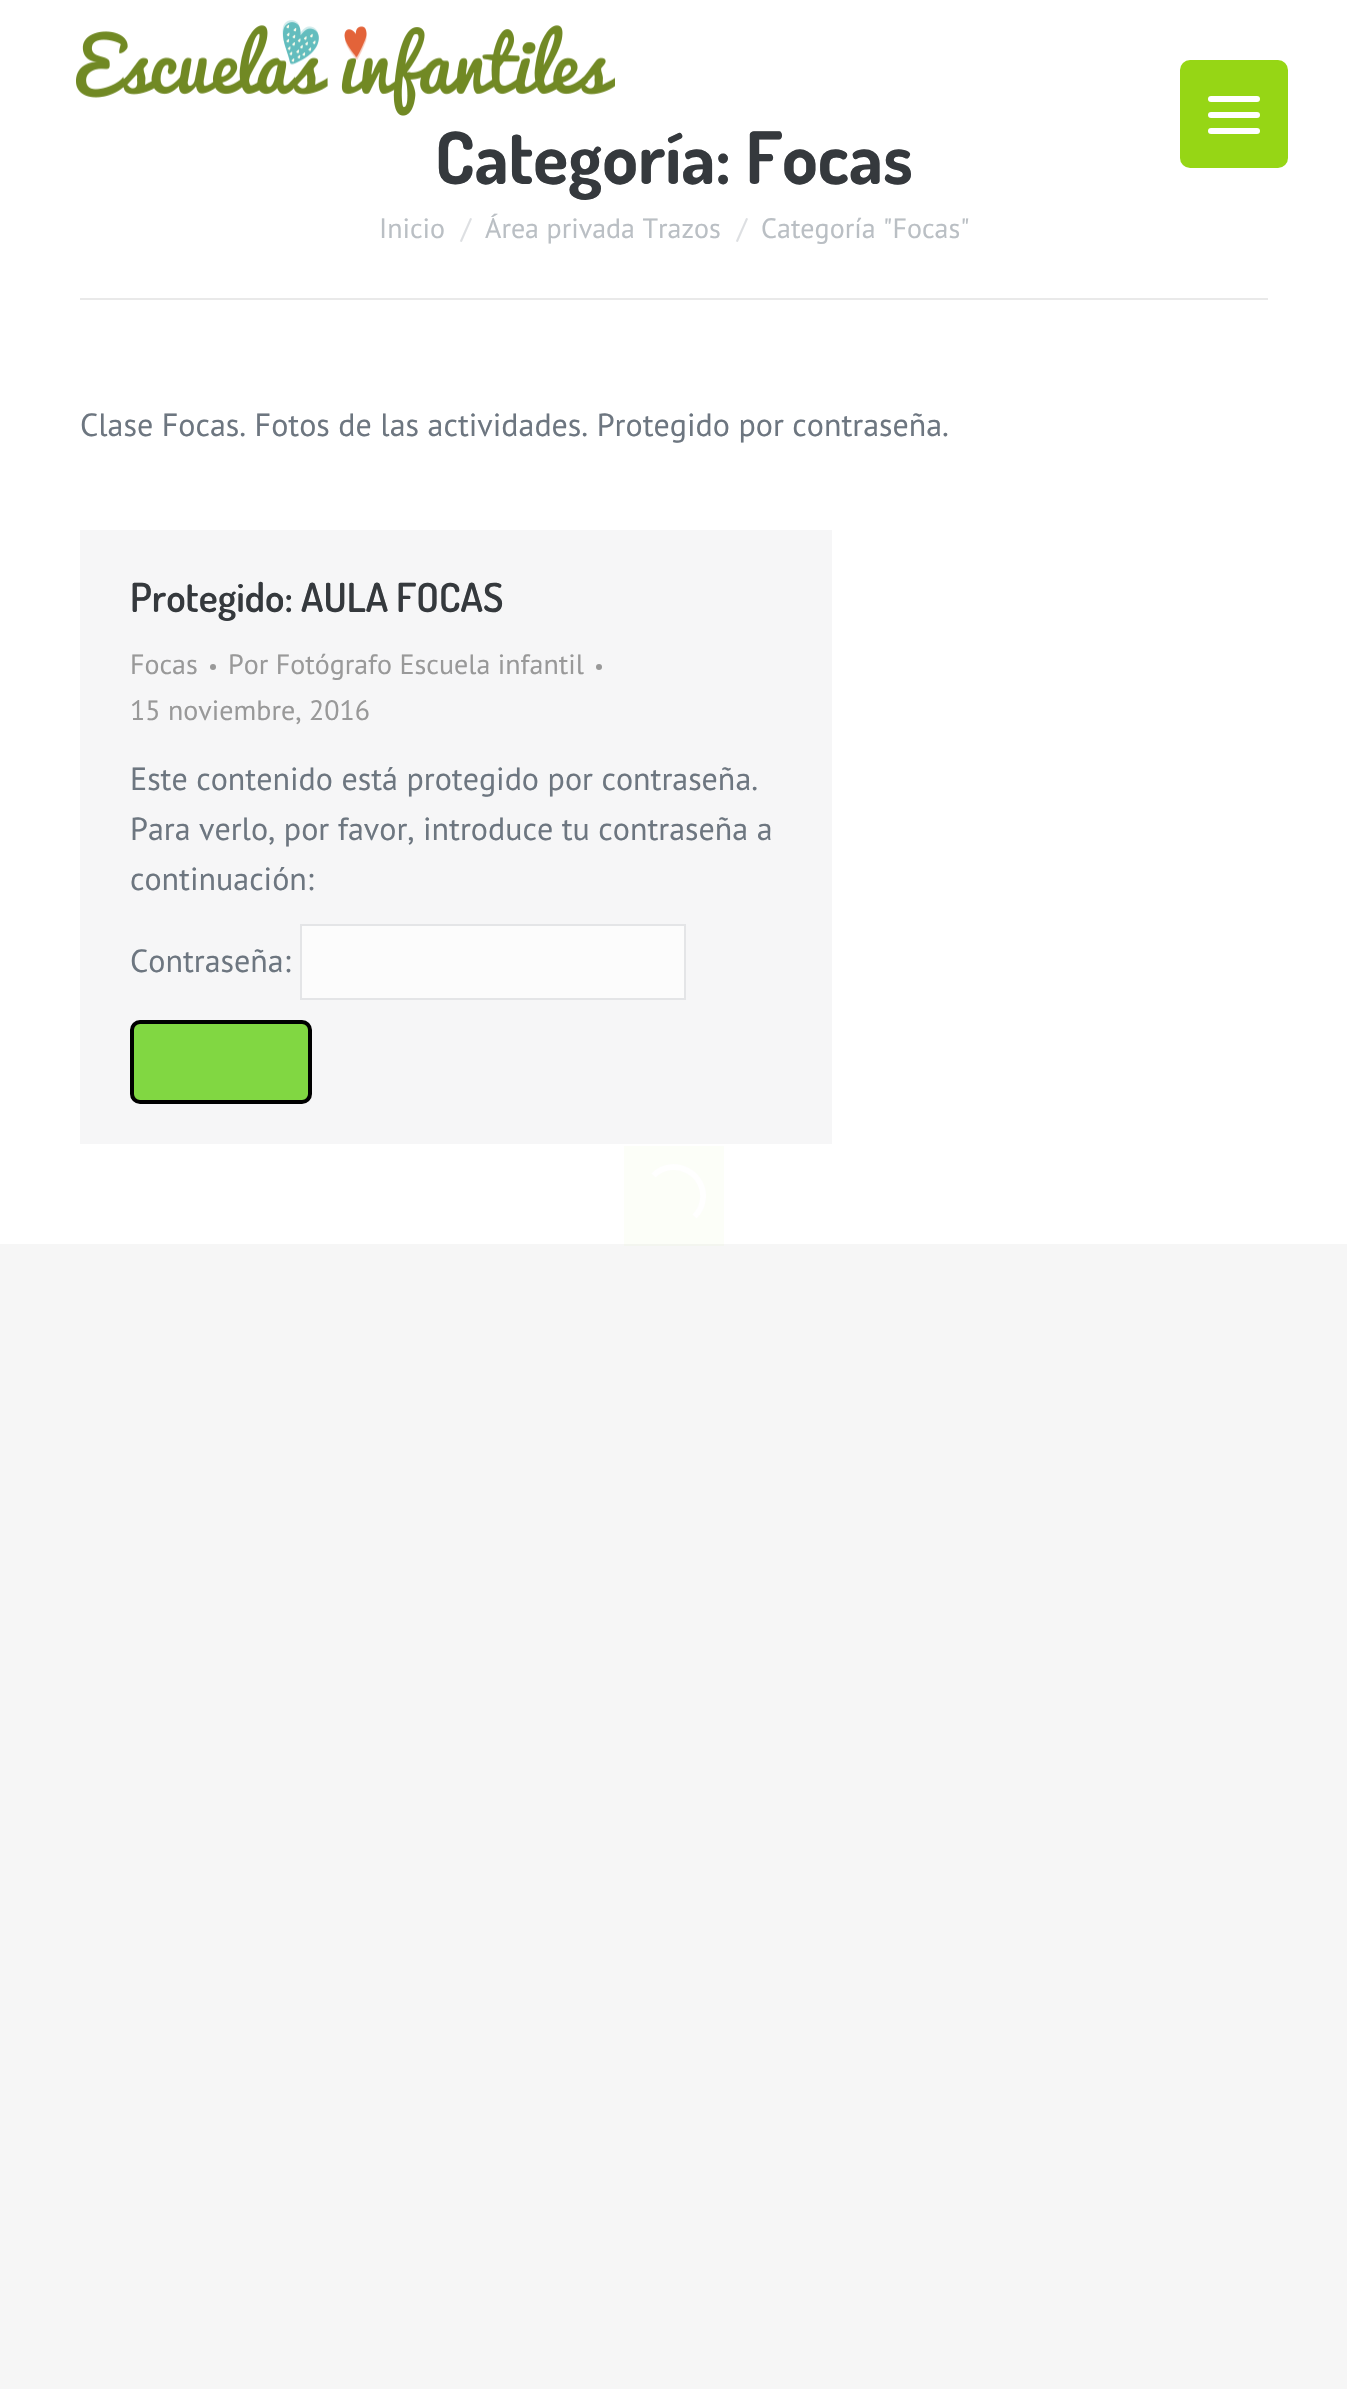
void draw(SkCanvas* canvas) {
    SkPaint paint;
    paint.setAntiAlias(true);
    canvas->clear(0xFFF6F6F6);
    paint.setColor(0xFFFFFFFF);
    canvas->drawRect(SkRect::MakeXYWH(0, 0, 1347, 1244), paint);
    canvas->drawImageRect(SkImages::DeferredFromEncodedData(SkData::MakeFromFileName("img1.png")), SkRect::MakeXYWH(76, 20, 539, 96), SkSamplingOptions());
    paint.setColor(0xFF96D615);
    canvas->drawRoundRect(SkRect::MakeXYWH(1180, 60, 108, 108), 10, 10, paint);
    paint.setColor(0xFFFFFFFF);
    canvas->drawRoundRect(SkRect::MakeXYWH(1208, 112, 52, 6), 3, 3, paint);
    canvas->drawRoundRect(SkRect::MakeXYWH(1208, 96, 52, 6), 3, 3, paint);
    canvas->drawRoundRect(SkRect::MakeXYWH(1208, 128, 52, 6), 3, 3, paint);
    SkFont font1(fontMgr->matchFamilyStyle("Dosis", SkFontStyle::Bold()), 72);
    font1.setSubpixel(true);
    paint.setColor(0xFF35393D);
    canvas->drawString("Categoría: Focas", 435, 184, font1, paint);
    SkFont font2(fontMgr->matchFamilyStyle("PT Sans", SkFontStyle::Normal()), 28);
    font2.setSubpixel(true);
    paint.setColor(0xFFBABFC4);
    canvas->drawString("Inicio", 379, 238, font2, paint);
    paint.setColor(0xFFDDDFE2);
    canvas->drawString("/", 461, 238, font2, paint);
    paint.setColor(0xFFBABFC4);
    canvas->drawString("Área privada Trazos", 485, 238, font2, paint);
    paint.setColor(0xFFDDDFE2);
    canvas->drawString("/", 737, 238, font2, paint);
    paint.setColor(0xFFBABFC4);
    canvas->drawString("Categoría \"Focas\"", 761, 238, font2, paint);
    paint.setColor(0xFFE9E9E9);
    canvas->drawRect(SkRect::MakeXYWH(80, 298, 1188, 2), paint);
    SkFont font3(fontMgr->matchFamilyStyle("PT Sans", SkFontStyle::Normal()), 32);
    font3.setSubpixel(true);
    paint.setColor(0xFF6D7680);
    canvas->drawString("Clase Focas. Fotos de las actividades. Protegido por contraseña.", 80, 436, font3, paint);
    paint.setColor(0xFFF6F6F7);
    canvas->drawRect(SkRect::MakeXYWH(80, 530, 752, 614), paint);
    SkFont font4(fontMgr->matchFamilyStyle("Dosis", SkFontStyle(600, SkFontStyle::kNormal_Width, SkFontStyle::kUpright_Slant)), 40);
    font4.setSubpixel(true);
    paint.setColor(0xFF35393D);
    canvas->drawString("Protegido: AULA FOCAS", 130, 612, font4, paint);
    paint.setColor(0xFF999999);
    canvas->drawString("Focas", 130, 674, font2, paint);
    canvas->drawCircle(213, 667, 3, paint);
    canvas->drawString("Por Fotógrafo Escuela infantil", 228, 674, font2, paint);
    canvas->drawCircle(599, 667, 3, paint);
    canvas->drawString("15 noviembre, 2016", 130, 720, font2, paint);
    paint.setColor(0xFF6D7680);
    canvas->drawString("Este contenido está protegido por contraseña.", 130, 790, font3, paint);
    canvas->drawString("Para verlo, por favor, introduce tu contraseña a", 130, 840, font3, paint);
    canvas->drawString("continuación:", 130, 890, font3, paint);
    canvas->drawString("Contraseña:", 130, 972, font3, paint);
    paint.setColor(0xFFFCFCFC);
    canvas->drawRect(SkRect::MakeXYWH(301, 925, 384, 74), paint);
    paint.setStyle(SkPaint::kStroke_Style);
    paint.setStrokeWidth(2);
    paint.setColor(0xFFE4E5E7);
    canvas->drawRect(SkRect::MakeXYWH(301, 925, 384, 74), paint);
    paint.setStyle(SkPaint::kFill_Style);
    paint.setColor(0xFF81D742);
    canvas->drawRoundRect(SkRect::MakeXYWH(132, 1022, 178, 80), 8, 8, paint);
    paint.setStyle(SkPaint::kStroke_Style);
    paint.setStrokeWidth(4);
    paint.setColor(0xFF000000);
    canvas->drawRoundRect(SkRect::MakeXYWH(132, 1022, 178, 80), 8, 8, paint);
    paint.setStyle(SkPaint::kFill_Style);
    paint.setColor(0x0896D615);
    canvas->drawRect(SkRect::MakeXYWH(624, 1146, 100, 100), paint);
    paint.setStyle(SkPaint::kStroke_Style);
    paint.setStrokeWidth(6);
    paint.setColor(0xFFFFFFFF);
    canvas->drawPath(SkPathBuilder().moveTo(653.5f, 1175.5f).cubicTo(673.5f, 1155.5f, 708, 1174, 702.5f, 1201.5f).cubicTo(701.5f, 1207.5f, 698.5f, 1212.5f, 694.5f, 1216.5f).detach(), paint);
}
